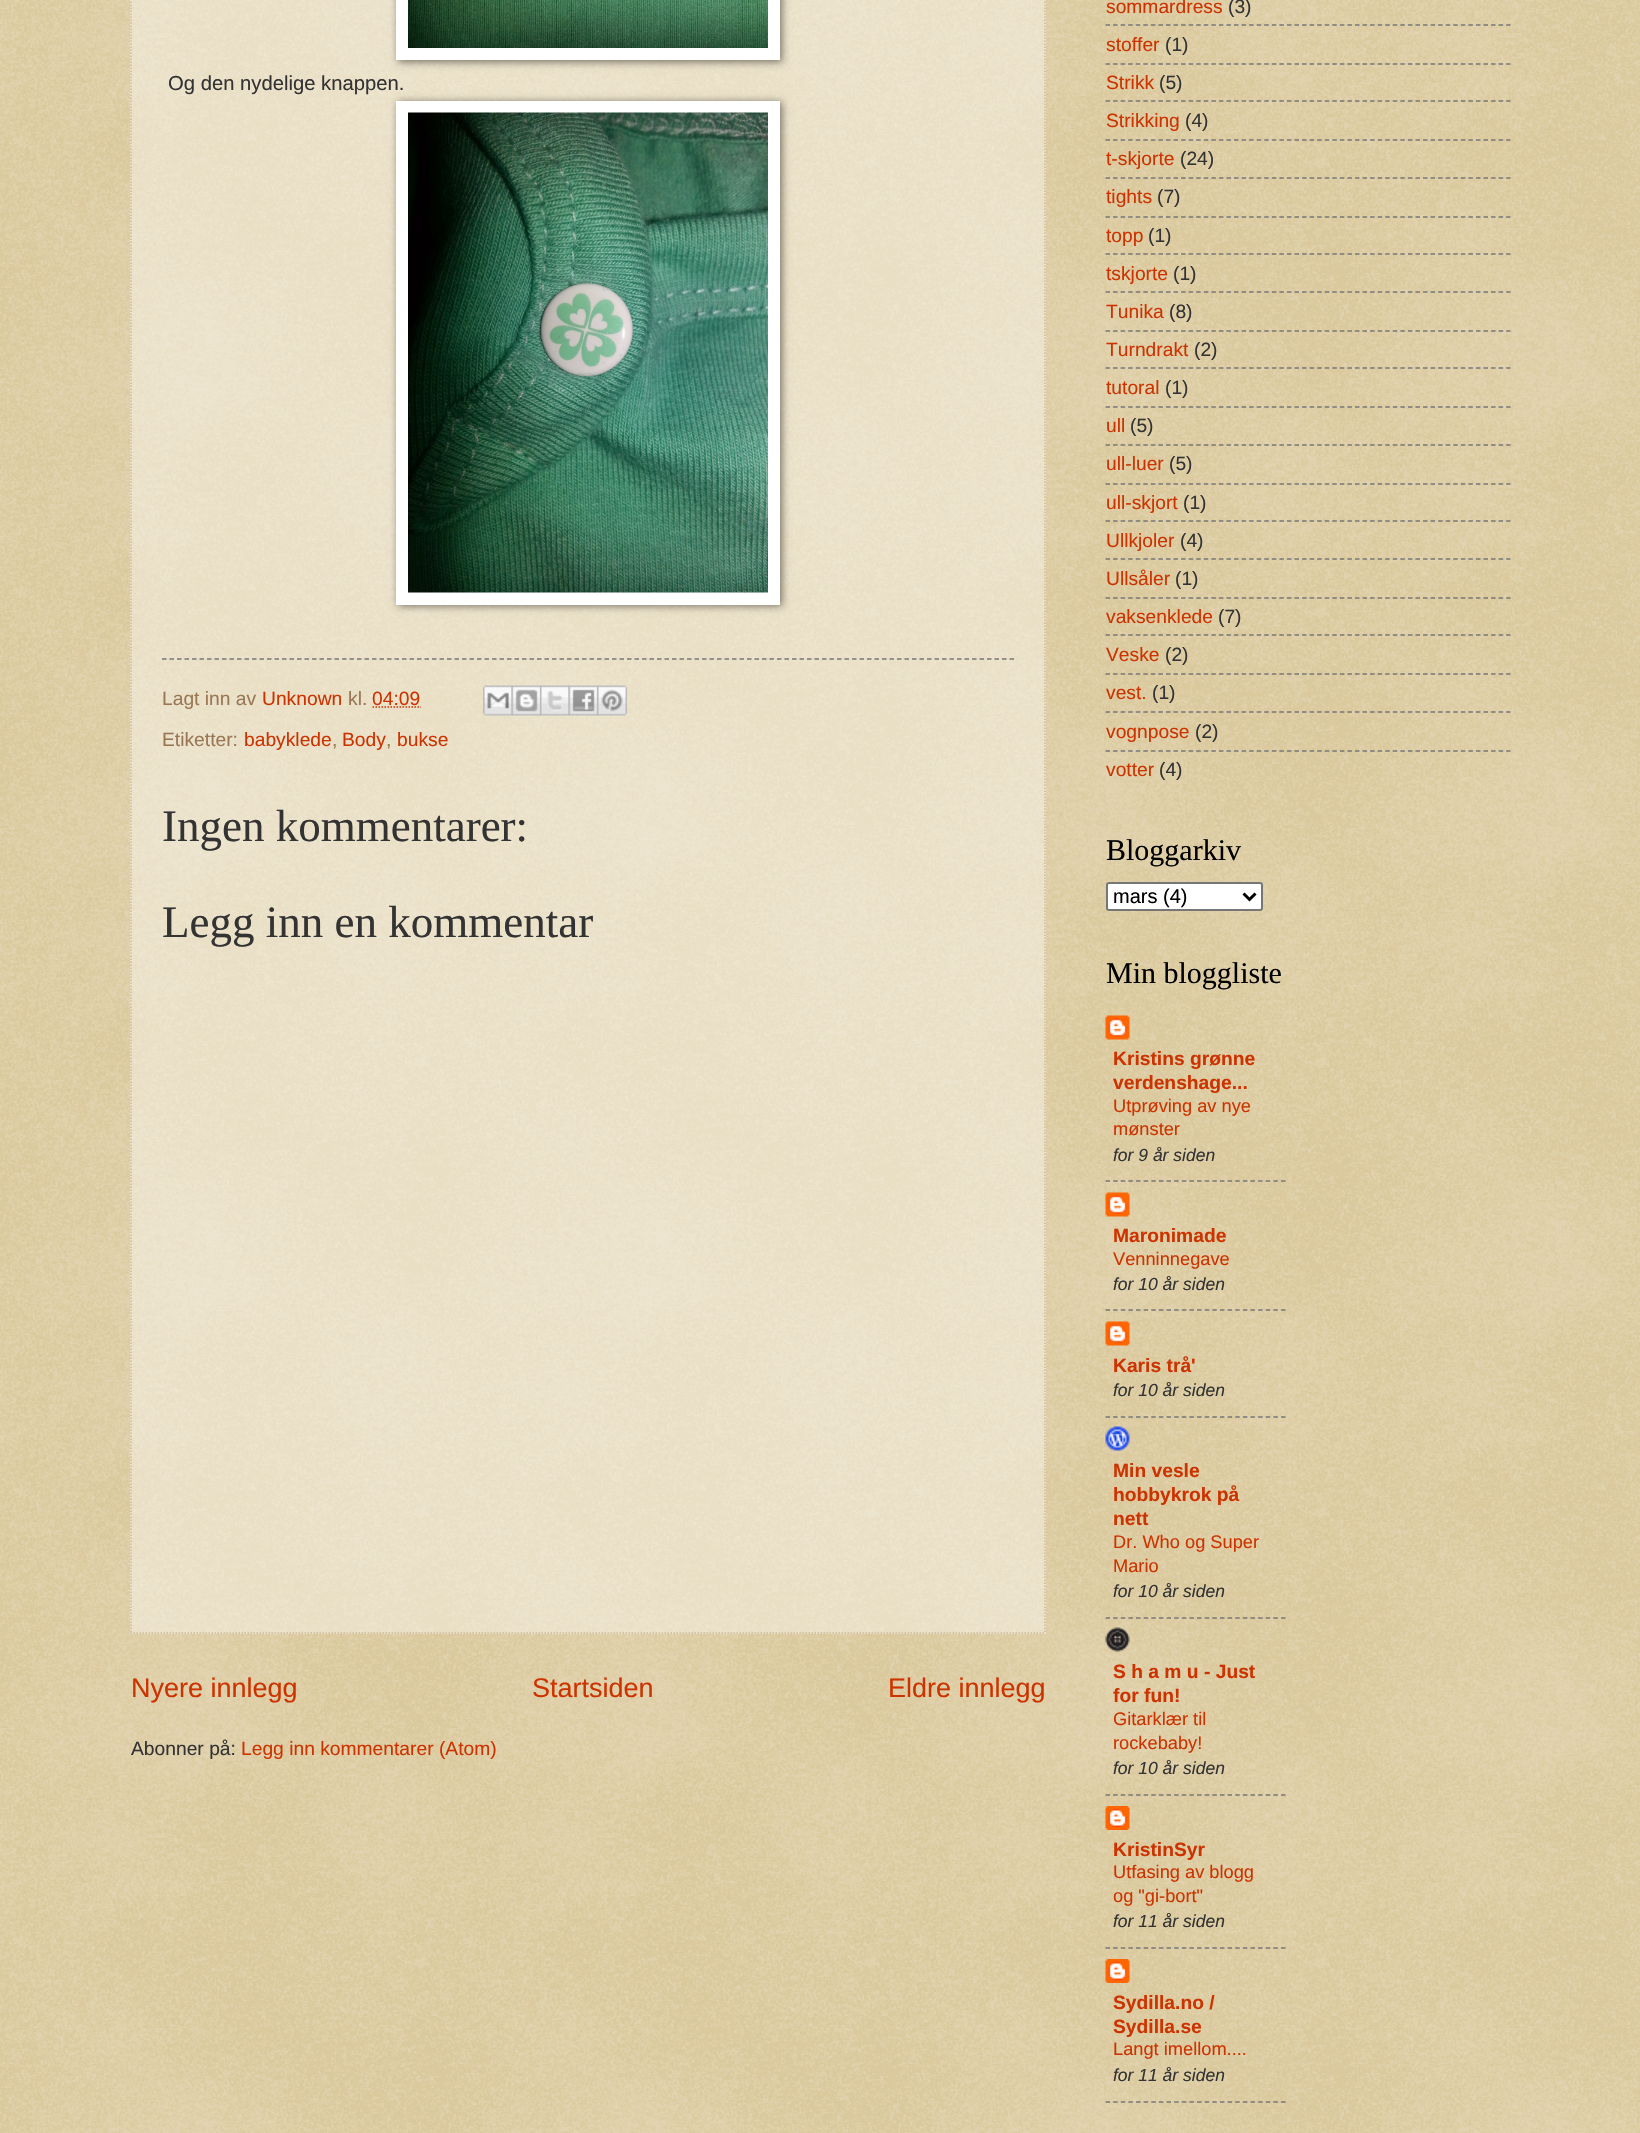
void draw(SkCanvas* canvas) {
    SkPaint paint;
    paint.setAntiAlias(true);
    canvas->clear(0xFFC0A154);
    canvas->drawImageRect(SkImages::DeferredFromEncodedData(SkData::MakeFromFileName("img1.png")), SkRect::MakeXYWH(0, 0, 1640, 2133), SkSamplingOptions());
    paint.setColor(0x66FFFFFF);
    canvas->drawRect(SkRect::MakeXYWH(130, 0, 916, 1634), paint);
    paint.setStyle(SkPaint::kStroke_Style);
    paint.setStrokeWidth(1.5f);
    paint.setColor(0xFFCCBB99);
    paint.setPathEffect(SkDashPathEffect::Make({{1.5f, 1.5f}}, 0));
    canvas->drawPath(SkPathBuilder().moveTo(1045, -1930.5f).lineTo(1045, 1633.5f).detach(), paint);
    paint.setPathEffect(nullptr);
    paint.setPathEffect(SkDashPathEffect::Make({{1.5f, 1.5f}}, 0));
    canvas->drawPath(SkPathBuilder().moveTo(130.5f, 1633).lineTo(1045.5f, 1633).detach(), paint);
    paint.setPathEffect(nullptr);
    paint.setPathEffect(SkDashPathEffect::Make({{1.5f, 1.5f}}, 0));
    canvas->drawPath(SkPathBuilder().moveTo(131, -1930.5f).lineTo(131, 1633.5f).detach(), paint);
    paint.setPathEffect(nullptr);
    paint.setStyle(SkPaint::kFill_Style);
    paint.setColor(0x80000000);
    paint.setMaskFilter(SkMaskFilter::MakeBlur(kNormal_SkBlurStyle, 4));
    canvas->drawRect(SkRect::MakeXYWH(398, -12, 384, 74), paint);
    paint.setMaskFilter(nullptr);
    paint.setColor(0xFFFFFFFF);
    canvas->drawRect(SkRect::MakeXYWH(396, 0, 384, 60), paint);
    canvas->drawImageRect(SkImages::DeferredFromEncodedData(SkData::MakeFromFileName("img2.png")), SkRect::MakeXYWH(408, 0, 360, 48), SkSamplingOptions());
    SkFont font1(fontMgr->matchFamilyStyle("Liberation Sans", SkFontStyle::Normal()), 20.25f);
    font1.setSubpixel(true);
    paint.setColor(0xFF333333);
    canvas->drawString("Og den nydelige knappen.", 168, 90, font1, paint);
    paint.setColor(0x80000000);
    paint.setMaskFilter(SkMaskFilter::MakeBlur(kNormal_SkBlurStyle, 4));
    canvas->drawRect(SkRect::MakeXYWH(398, 102, 384, 504), paint);
    paint.setMaskFilter(nullptr);
    paint.setColor(0xFFFFFFFF);
    canvas->drawRect(SkRect::MakeXYWH(396, 101, 384, 504), paint);
    canvas->drawImageRect(SkImages::DeferredFromEncodedData(SkData::MakeFromFileName("img3.png")), SkRect::MakeXYWH(408, 112, 360, 481), SkSamplingOptions());
    paint.setStyle(SkPaint::kStroke_Style);
    paint.setColor(0xFF777777);
    paint.setPathEffect(SkDashPathEffect::Make({{4.5f, 3}}, 0));
    canvas->drawPath(SkPathBuilder().moveTo(162, 659).lineTo(1014, 659).detach(), paint);
    paint.setPathEffect(nullptr);
    SkFont font2(fontMgr->matchFamilyStyle("Liberation Sans", SkFontStyle::Normal()), 19.25f);
    font2.setSubpixel(true);
    paint.setStyle(SkPaint::kFill_Style);
    paint.setColor(0xFF997755);
    canvas->drawString("Lagt inn av", 162, 705, font2, paint);
    paint.setColor(0xFFCC3300);
    canvas->drawString("Unknown", 262, 705, font2, paint);
    paint.setColor(0xFF997755);
    canvas->drawString("kl.", 348, 705, font2, paint);
    paint.setColor(0xFFCC3300);
    canvas->drawString("04:09", 372, 705, font2, paint);
    paint.setStyle(SkPaint::kStroke_Style);
    paint.setPathEffect(SkDashPathEffect::Make({{1.5f, 1.5f}}, 0));
    canvas->drawPath(SkPathBuilder().moveTo(372.5f, 707).lineTo(421, 707).detach(), paint);
    paint.setPathEffect(nullptr);
    canvas->drawImageRect(SkImages::DeferredFromEncodedData(SkData::MakeFromFileName("img4.png")), SkRect::MakeXYWH(483, 685, 30, 31), SkSamplingOptions());
    canvas->drawImageRect(SkImages::DeferredFromEncodedData(SkData::MakeFromFileName("img5.png")), SkRect::MakeXYWH(511, 685, 31, 31), SkSamplingOptions());
    canvas->drawImageRect(SkImages::DeferredFromEncodedData(SkData::MakeFromFileName("img6.png")), SkRect::MakeXYWH(540, 685, 30, 31), SkSamplingOptions());
    canvas->drawImageRect(SkImages::DeferredFromEncodedData(SkData::MakeFromFileName("img7.png")), SkRect::MakeXYWH(568, 685, 31, 31), SkSamplingOptions());
    canvas->drawImageRect(SkImages::DeferredFromEncodedData(SkData::MakeFromFileName("img8.png")), SkRect::MakeXYWH(597, 685, 30, 31), SkSamplingOptions());
    paint.setStyle(SkPaint::kFill_Style);
    paint.setColor(0xFF997755);
    canvas->drawString("Etiketter:", 162, 746, font2, paint);
    paint.setColor(0xFFCC3300);
    canvas->drawString("babyklede", 244, 746, font2, paint);
    paint.setColor(0xFF997755);
    canvas->drawString(",", 332, 746, font2, paint);
    paint.setColor(0xFFCC3300);
    canvas->drawString("Body", 342, 746, font2, paint);
    paint.setColor(0xFF997755);
    canvas->drawString(",", 386, 746, font2, paint);
    paint.setColor(0xFFCC3300);
    canvas->drawString("bukse", 397, 746, font2, paint);
    SkFont font3(fontMgr->matchFamilyStyle("Liberation Serif", SkFontStyle::Normal()), 45);
    font3.setSubpixel(true);
    paint.setColor(0xFF333333);
    canvas->drawString("Ingen kommentarer:", 162, 841, font3, paint);
    canvas->drawString("Legg inn en kommentar", 162, 937, font3, paint);
    SkFont font4(fontMgr->matchFamilyStyle("Liberation Sans", SkFontStyle::Normal()), 27);
    font4.setSubpixel(true);
    paint.setColor(0xFFCC3300);
    canvas->drawString("Nyere innlegg", 131, 1697, font4, paint);
    canvas->drawString("Startsiden", 532, 1697, font4, paint);
    canvas->drawString("Eldre innlegg", 888, 1697, font4, paint);
    paint.setColor(0xFF333333);
    canvas->drawString("Abonner på:", 131, 1755, font2, paint);
    paint.setColor(0xFFCC3300);
    canvas->drawString("Legg inn kommentarer (Atom)", 241, 1755, font2, paint);
    canvas->drawString("sommardress", 1106, 13, font2, paint);
    paint.setColor(0xFF333333);
    canvas->drawString("(3)", 1228, 13, font2, paint);
    paint.setStyle(SkPaint::kStroke_Style);
    paint.setColor(0xFF777777);
    paint.setPathEffect(SkDashPathEffect::Make({{4.5f, 3.06f}}, 0));
    canvas->drawPath(SkPathBuilder().moveTo(1105.5f, 25).lineTo(1510.5f, 25).detach(), paint);
    paint.setPathEffect(nullptr);
    paint.setStyle(SkPaint::kFill_Style);
    paint.setColor(0xFFCC3300);
    canvas->drawString("stoffer", 1106, 51, font2, paint);
    paint.setColor(0xFF333333);
    canvas->drawString("(1)", 1165, 51, font2, paint);
    paint.setStyle(SkPaint::kStroke_Style);
    paint.setColor(0xFF777777);
    paint.setPathEffect(SkDashPathEffect::Make({{4.5f, 3.06f}}, 0));
    canvas->drawPath(SkPathBuilder().moveTo(1105.5f, 64).lineTo(1510.5f, 64).detach(), paint);
    paint.setPathEffect(nullptr);
    paint.setStyle(SkPaint::kFill_Style);
    paint.setColor(0xFFCC3300);
    canvas->drawString("Strikk", 1106, 89, font2, paint);
    paint.setColor(0xFF333333);
    canvas->drawString("(5)", 1159, 89, font2, paint);
    paint.setStyle(SkPaint::kStroke_Style);
    paint.setColor(0xFF777777);
    paint.setPathEffect(SkDashPathEffect::Make({{4.5f, 3.06f}}, 0));
    canvas->drawPath(SkPathBuilder().moveTo(1105.5f, 101).lineTo(1510.5f, 101).detach(), paint);
    paint.setPathEffect(nullptr);
    paint.setStyle(SkPaint::kFill_Style);
    paint.setColor(0xFFCC3300);
    canvas->drawString("Strikking", 1106, 127, font2, paint);
    paint.setColor(0xFF333333);
    canvas->drawString("(4)", 1185, 127, font2, paint);
    paint.setStyle(SkPaint::kStroke_Style);
    paint.setColor(0xFF777777);
    paint.setPathEffect(SkDashPathEffect::Make({{4.5f, 3.06f}}, 0));
    canvas->drawPath(SkPathBuilder().moveTo(1105.5f, 140).lineTo(1510.5f, 140).detach(), paint);
    paint.setPathEffect(nullptr);
    paint.setStyle(SkPaint::kFill_Style);
    paint.setColor(0xFFCC3300);
    canvas->drawString("t-skjorte", 1106, 165, font2, paint);
    paint.setColor(0xFF333333);
    canvas->drawString("(24)", 1180, 165, font2, paint);
    paint.setStyle(SkPaint::kStroke_Style);
    paint.setColor(0xFF777777);
    paint.setPathEffect(SkDashPathEffect::Make({{4.5f, 3.06f}}, 0));
    canvas->drawPath(SkPathBuilder().moveTo(1105.5f, 178).lineTo(1510.5f, 178).detach(), paint);
    paint.setPathEffect(nullptr);
    paint.setStyle(SkPaint::kFill_Style);
    paint.setColor(0xFFCC3300);
    canvas->drawString("tights", 1106, 203, font2, paint);
    paint.setColor(0xFF333333);
    canvas->drawString("(7)", 1157, 203, font2, paint);
    paint.setStyle(SkPaint::kStroke_Style);
    paint.setColor(0xFF777777);
    paint.setPathEffect(SkDashPathEffect::Make({{4.5f, 3.06f}}, 0));
    canvas->drawPath(SkPathBuilder().moveTo(1105.5f, 217).lineTo(1510.5f, 217).detach(), paint);
    paint.setPathEffect(nullptr);
    paint.setStyle(SkPaint::kFill_Style);
    paint.setColor(0xFFCC3300);
    canvas->drawString("topp", 1106, 242, font2, paint);
    paint.setColor(0xFF333333);
    canvas->drawString("(1)", 1148, 242, font2, paint);
    paint.setStyle(SkPaint::kStroke_Style);
    paint.setColor(0xFF777777);
    paint.setPathEffect(SkDashPathEffect::Make({{4.5f, 3.06f}}, 0));
    canvas->drawPath(SkPathBuilder().moveTo(1105.5f, 254).lineTo(1510.5f, 254).detach(), paint);
    paint.setPathEffect(nullptr);
    paint.setStyle(SkPaint::kFill_Style);
    paint.setColor(0xFFCC3300);
    canvas->drawString("tskjorte", 1106, 280, font2, paint);
    paint.setColor(0xFF333333);
    canvas->drawString("(1)", 1173, 280, font2, paint);
    paint.setStyle(SkPaint::kStroke_Style);
    paint.setColor(0xFF777777);
    paint.setPathEffect(SkDashPathEffect::Make({{4.5f, 3.06f}}, 0));
    canvas->drawPath(SkPathBuilder().moveTo(1105.5f, 292).lineTo(1510.5f, 292).detach(), paint);
    paint.setPathEffect(nullptr);
    paint.setStyle(SkPaint::kFill_Style);
    paint.setColor(0xFFCC3300);
    canvas->drawString("Tunika", 1106, 318, font2, paint);
    paint.setColor(0xFF333333);
    canvas->drawString("(8)", 1169, 318, font2, paint);
    paint.setStyle(SkPaint::kStroke_Style);
    paint.setColor(0xFF777777);
    paint.setPathEffect(SkDashPathEffect::Make({{4.5f, 3.06f}}, 0));
    canvas->drawPath(SkPathBuilder().moveTo(1105.5f, 331).lineTo(1510.5f, 331).detach(), paint);
    paint.setPathEffect(nullptr);
    paint.setStyle(SkPaint::kFill_Style);
    paint.setColor(0xFFCC3300);
    canvas->drawString("Turndrakt", 1106, 356, font2, paint);
    paint.setColor(0xFF333333);
    canvas->drawString("(2)", 1194, 356, font2, paint);
    paint.setStyle(SkPaint::kStroke_Style);
    paint.setColor(0xFF777777);
    paint.setPathEffect(SkDashPathEffect::Make({{4.5f, 3.06f}}, 0));
    canvas->drawPath(SkPathBuilder().moveTo(1105.5f, 368).lineTo(1510.5f, 368).detach(), paint);
    paint.setPathEffect(nullptr);
    paint.setStyle(SkPaint::kFill_Style);
    paint.setColor(0xFFCC3300);
    canvas->drawString("tutoral", 1106, 394, font2, paint);
    paint.setColor(0xFF333333);
    canvas->drawString("(1)", 1165, 394, font2, paint);
    paint.setStyle(SkPaint::kStroke_Style);
    paint.setColor(0xFF777777);
    paint.setPathEffect(SkDashPathEffect::Make({{4.5f, 3.06f}}, 0));
    canvas->drawPath(SkPathBuilder().moveTo(1105.5f, 407).lineTo(1510.5f, 407).detach(), paint);
    paint.setPathEffect(nullptr);
    paint.setStyle(SkPaint::kFill_Style);
    paint.setColor(0xFFCC3300);
    canvas->drawString("ull", 1106, 432, font2, paint);
    paint.setColor(0xFF333333);
    canvas->drawString("(5)", 1130, 432, font2, paint);
    paint.setStyle(SkPaint::kStroke_Style);
    paint.setColor(0xFF777777);
    paint.setPathEffect(SkDashPathEffect::Make({{4.5f, 3.06f}}, 0));
    canvas->drawPath(SkPathBuilder().moveTo(1105.5f, 445).lineTo(1510.5f, 445).detach(), paint);
    paint.setPathEffect(nullptr);
    paint.setStyle(SkPaint::kFill_Style);
    paint.setColor(0xFFCC3300);
    canvas->drawString("ull-luer", 1106, 470, font2, paint);
    paint.setColor(0xFF333333);
    canvas->drawString("(5)", 1169, 470, font2, paint);
    paint.setStyle(SkPaint::kStroke_Style);
    paint.setColor(0xFF777777);
    paint.setPathEffect(SkDashPathEffect::Make({{4.5f, 3.06f}}, 0));
    canvas->drawPath(SkPathBuilder().moveTo(1105.5f, 484).lineTo(1510.5f, 484).detach(), paint);
    paint.setPathEffect(nullptr);
    paint.setStyle(SkPaint::kFill_Style);
    paint.setColor(0xFFCC3300);
    canvas->drawString("ull-skjort", 1106, 509, font2, paint);
    paint.setColor(0xFF333333);
    canvas->drawString("(1)", 1183, 509, font2, paint);
    paint.setStyle(SkPaint::kStroke_Style);
    paint.setColor(0xFF777777);
    paint.setPathEffect(SkDashPathEffect::Make({{4.5f, 3.06f}}, 0));
    canvas->drawPath(SkPathBuilder().moveTo(1105.5f, 521).lineTo(1510.5f, 521).detach(), paint);
    paint.setPathEffect(nullptr);
    paint.setStyle(SkPaint::kFill_Style);
    paint.setColor(0xFFCC3300);
    canvas->drawString("Ullkjoler", 1106, 547, font2, paint);
    paint.setColor(0xFF333333);
    canvas->drawString("(4)", 1180, 547, font2, paint);
    paint.setStyle(SkPaint::kStroke_Style);
    paint.setColor(0xFF777777);
    paint.setPathEffect(SkDashPathEffect::Make({{4.5f, 3.06f}}, 0));
    canvas->drawPath(SkPathBuilder().moveTo(1105.5f, 559).lineTo(1510.5f, 559).detach(), paint);
    paint.setPathEffect(nullptr);
    paint.setStyle(SkPaint::kFill_Style);
    paint.setColor(0xFFCC3300);
    canvas->drawString("Ullsåler", 1106, 585, font2, paint);
    paint.setColor(0xFF333333);
    canvas->drawString("(1)", 1175, 585, font2, paint);
    paint.setStyle(SkPaint::kStroke_Style);
    paint.setColor(0xFF777777);
    paint.setPathEffect(SkDashPathEffect::Make({{4.5f, 3.06f}}, 0));
    canvas->drawPath(SkPathBuilder().moveTo(1105.5f, 598).lineTo(1510.5f, 598).detach(), paint);
    paint.setPathEffect(nullptr);
    paint.setStyle(SkPaint::kFill_Style);
    paint.setColor(0xFFCC3300);
    canvas->drawString("vaksenklede", 1106, 623, font2, paint);
    paint.setColor(0xFF333333);
    canvas->drawString("(7)", 1218, 623, font2, paint);
    paint.setStyle(SkPaint::kStroke_Style);
    paint.setColor(0xFF777777);
    paint.setPathEffect(SkDashPathEffect::Make({{4.5f, 3.06f}}, 0));
    canvas->drawPath(SkPathBuilder().moveTo(1105.5f, 635).lineTo(1510.5f, 635).detach(), paint);
    paint.setPathEffect(nullptr);
    paint.setStyle(SkPaint::kFill_Style);
    paint.setColor(0xFFCC3300);
    canvas->drawString("Veske", 1106, 661, font2, paint);
    paint.setColor(0xFF333333);
    canvas->drawString("(2)", 1165, 661, font2, paint);
    paint.setStyle(SkPaint::kStroke_Style);
    paint.setColor(0xFF777777);
    paint.setPathEffect(SkDashPathEffect::Make({{4.5f, 3.06f}}, 0));
    canvas->drawPath(SkPathBuilder().moveTo(1105.5f, 674).lineTo(1510.5f, 674).detach(), paint);
    paint.setPathEffect(nullptr);
    paint.setStyle(SkPaint::kFill_Style);
    paint.setColor(0xFFCC3300);
    canvas->drawString("vest.", 1106, 699, font2, paint);
    paint.setColor(0xFF333333);
    canvas->drawString("(1)", 1152, 699, font2, paint);
    paint.setStyle(SkPaint::kStroke_Style);
    paint.setColor(0xFF777777);
    paint.setPathEffect(SkDashPathEffect::Make({{4.5f, 3.06f}}, 0));
    canvas->drawPath(SkPathBuilder().moveTo(1105.5f, 712).lineTo(1510.5f, 712).detach(), paint);
    paint.setPathEffect(nullptr);
    paint.setStyle(SkPaint::kFill_Style);
    paint.setColor(0xFFCC3300);
    canvas->drawString("vognpose", 1106, 738, font2, paint);
    paint.setColor(0xFF333333);
    canvas->drawString("(2)", 1195, 738, font2, paint);
    paint.setStyle(SkPaint::kStroke_Style);
    paint.setColor(0xFF777777);
    paint.setPathEffect(SkDashPathEffect::Make({{4.5f, 3.06f}}, 0));
    canvas->drawPath(SkPathBuilder().moveTo(1105.5f, 751).lineTo(1510.5f, 751).detach(), paint);
    paint.setPathEffect(nullptr);
    paint.setStyle(SkPaint::kFill_Style);
    paint.setColor(0xFFCC3300);
    canvas->drawString("votter", 1106, 776, font2, paint);
    paint.setColor(0xFF333333);
    canvas->drawString("(4)", 1159, 776, font2, paint);
    SkFont font5(fontMgr->matchFamilyStyle("Liberation Serif", SkFontStyle::Normal()), 30);
    font5.setSubpixel(true);
    paint.setColor(0xFF000000);
    canvas->drawString("Bloggarkiv", 1106, 860, font5, paint);
    paint.setColor(0xFFFFFFFF);
    canvas->drawRoundRect(SkRect::MakeXYWH(1107, 883, 155, 27), 2, 2, paint);
    paint.setStyle(SkPaint::kStroke_Style);
    paint.setStrokeWidth(2);
    paint.setColor(0xFF767676);
    canvas->drawRoundRect(SkRect::MakeXYWH(1107, 883, 155, 27), 2, 2, paint);
    paint.setStrokeWidth(3);
    paint.setColor(0xFF000000);
    canvas->drawPath(SkPathBuilder().moveTo(1243.5f, 893.5f).lineTo(1249.5f, 899.5f).lineTo(1255.5f, 893.5f).detach(), paint);
    SkFont font6(fontMgr->matchFamilyStyle("Liberation Sans", SkFontStyle::Normal()), 20);
    font6.setSubpixel(true);
    paint.setStyle(SkPaint::kFill_Style);
    canvas->drawString("mars (4)", 1113, 903, font6, paint);
    canvas->drawString("Min bloggliste", 1106, 983, font5, paint);
    canvas->drawImageRect(SkImages::DeferredFromEncodedData(SkData::MakeFromFileName("img9.png")), SkRect::MakeXYWH(1105, 1015, 25, 25), SkSamplingOptions());
    SkFont font7(fontMgr->matchFamilyStyle("Liberation Sans", SkFontStyle::Bold()), 19.25f);
    font7.setSubpixel(true);
    paint.setColor(0xFFCC3300);
    canvas->drawString("Kristins grønne", 1113, 1065, font7, paint);
    canvas->drawString("verdenshage...", 1113, 1089, font7, paint);
    SkFont font8(fontMgr->matchFamilyStyle("Liberation Sans", SkFontStyle::Normal()), 18.25f);
    font8.setSubpixel(true);
    canvas->drawString("Utprøving av nye", 1113, 1112, font8, paint);
    canvas->drawString("mønster", 1113, 1135, font8, paint);
    SkFont font9(fontMgr->matchFamilyStyle("Liberation Sans", SkFontStyle::Italic()), 17.5f);
    font9.setSubpixel(true);
    paint.setColor(0xFF333333);
    canvas->drawString("for 9 år siden", 1113, 1161, font9, paint);
    paint.setStyle(SkPaint::kStroke_Style);
    paint.setStrokeWidth(1.5f);
    paint.setColor(0xFF777777);
    paint.setPathEffect(SkDashPathEffect::Make({{4.5f, 3.13f}}, 0));
    canvas->drawPath(SkPathBuilder().moveTo(1105.5f, 1181).lineTo(1285.5f, 1181).detach(), paint);
    paint.setPathEffect(nullptr);
    canvas->drawImageRect(SkImages::DeferredFromEncodedData(SkData::MakeFromFileName("img10.png")), SkRect::MakeXYWH(1105, 1192, 25, 25), SkSamplingOptions());
    paint.setStyle(SkPaint::kFill_Style);
    paint.setColor(0xFFCC3300);
    canvas->drawString("Maronimade", 1113, 1242, font7, paint);
    canvas->drawString("Venninnegave", 1113, 1265, font8, paint);
    paint.setColor(0xFF333333);
    canvas->drawString("for 10 år siden", 1113, 1290, font9, paint);
    paint.setStyle(SkPaint::kStroke_Style);
    paint.setColor(0xFF777777);
    paint.setPathEffect(SkDashPathEffect::Make({{4.5f, 3.13f}}, 0));
    canvas->drawPath(SkPathBuilder().moveTo(1105.5f, 1310).lineTo(1285.5f, 1310).detach(), paint);
    paint.setPathEffect(nullptr);
    canvas->drawImageRect(SkImages::DeferredFromEncodedData(SkData::MakeFromFileName("img11.png")), SkRect::MakeXYWH(1105, 1321, 25, 25), SkSamplingOptions());
    paint.setStyle(SkPaint::kFill_Style);
    paint.setColor(0xFFCC3300);
    canvas->drawString("Karis trå'", 1113, 1372, font7, paint);
    paint.setColor(0xFF333333);
    canvas->drawString("for 10 år siden", 1113, 1396, font9, paint);
    paint.setStyle(SkPaint::kStroke_Style);
    paint.setColor(0xFF777777);
    paint.setPathEffect(SkDashPathEffect::Make({{4.5f, 3.13f}}, 0));
    canvas->drawPath(SkPathBuilder().moveTo(1105.5f, 1417).lineTo(1285.5f, 1417).detach(), paint);
    paint.setPathEffect(nullptr);
    canvas->drawImageRect(SkImages::DeferredFromEncodedData(SkData::MakeFromFileName("img12.png")), SkRect::MakeXYWH(1105, 1426, 25, 25), SkSamplingOptions());
    paint.setStyle(SkPaint::kFill_Style);
    paint.setColor(0xFFCC3300);
    canvas->drawString("Min vesle", 1113, 1477, font7, paint);
    canvas->drawString("hobbykrok på", 1113, 1501, font7, paint);
    canvas->drawString("nett", 1113, 1525, font7, paint);
    canvas->drawString("Dr. Who og Super", 1113, 1548, font8, paint);
    canvas->drawString("Mario", 1113, 1572, font8, paint);
    paint.setColor(0xFF333333);
    canvas->drawString("for 10 år siden", 1113, 1597, font9, paint);
    paint.setStyle(SkPaint::kStroke_Style);
    paint.setColor(0xFF777777);
    paint.setPathEffect(SkDashPathEffect::Make({{4.5f, 3.13f}}, 0));
    canvas->drawPath(SkPathBuilder().moveTo(1105.5f, 1618).lineTo(1285.5f, 1618).detach(), paint);
    paint.setPathEffect(nullptr);
    canvas->drawImageRect(SkImages::DeferredFromEncodedData(SkData::MakeFromFileName("img13.png")), SkRect::MakeXYWH(1105, 1627, 25, 25), SkSamplingOptions());
    paint.setStyle(SkPaint::kFill_Style);
    paint.setColor(0xFFCC3300);
    canvas->drawString("S h a m u - Just", 1113, 1678, font7, paint);
    canvas->drawString("for fun!", 1113, 1702, font7, paint);
    canvas->drawString("Gitarklær til", 1113, 1725, font8, paint);
    canvas->drawString("rockebaby!", 1113, 1749, font8, paint);
    paint.setColor(0xFF333333);
    canvas->drawString("for 10 år siden", 1113, 1774, font9, paint);
    paint.setStyle(SkPaint::kStroke_Style);
    paint.setColor(0xFF777777);
    paint.setPathEffect(SkDashPathEffect::Make({{4.5f, 3.13f}}, 0));
    canvas->drawPath(SkPathBuilder().moveTo(1105.5f, 1795).lineTo(1285.5f, 1795).detach(), paint);
    paint.setPathEffect(nullptr);
    canvas->drawImageRect(SkImages::DeferredFromEncodedData(SkData::MakeFromFileName("img14.png")), SkRect::MakeXYWH(1105, 1806, 25, 24), SkSamplingOptions());
    paint.setStyle(SkPaint::kFill_Style);
    paint.setColor(0xFFCC3300);
    canvas->drawString("KristinSyr", 1113, 1856, font7, paint);
    canvas->drawString("Utfasing av blogg", 1113, 1878, font8, paint);
    canvas->drawString("og \"gi-bort\"", 1113, 1902, font8, paint);
    paint.setColor(0xFF333333);
    canvas->drawString("for 11 år siden", 1113, 1927, font9, paint);
    paint.setStyle(SkPaint::kStroke_Style);
    paint.setColor(0xFF777777);
    paint.setPathEffect(SkDashPathEffect::Make({{4.5f, 3.13f}}, 0));
    canvas->drawPath(SkPathBuilder().moveTo(1105.5f, 1948).lineTo(1285.5f, 1948).detach(), paint);
    paint.setPathEffect(nullptr);
    canvas->drawImageRect(SkImages::DeferredFromEncodedData(SkData::MakeFromFileName("img15.png")), SkRect::MakeXYWH(1105, 1959, 25, 24), SkSamplingOptions());
    paint.setStyle(SkPaint::kFill_Style);
    paint.setColor(0xFFCC3300);
    canvas->drawString("Sydilla.no /", 1113, 2009, font7, paint);
    canvas->drawString("Sydilla.se", 1113, 2033, font7, paint);
    canvas->drawString("Langt imellom....", 1113, 2055, font8, paint);
    paint.setColor(0xFF333333);
    canvas->drawString("for 11 år siden", 1113, 2081, font9, paint);
    paint.setStyle(SkPaint::kStroke_Style);
    paint.setColor(0xFF777777);
    paint.setPathEffect(SkDashPathEffect::Make({{4.5f, 3.13f}}, 0));
    canvas->drawPath(SkPathBuilder().moveTo(1105.5f, 2102).lineTo(1285.5f, 2102).detach(), paint);
    paint.setPathEffect(nullptr);
}
